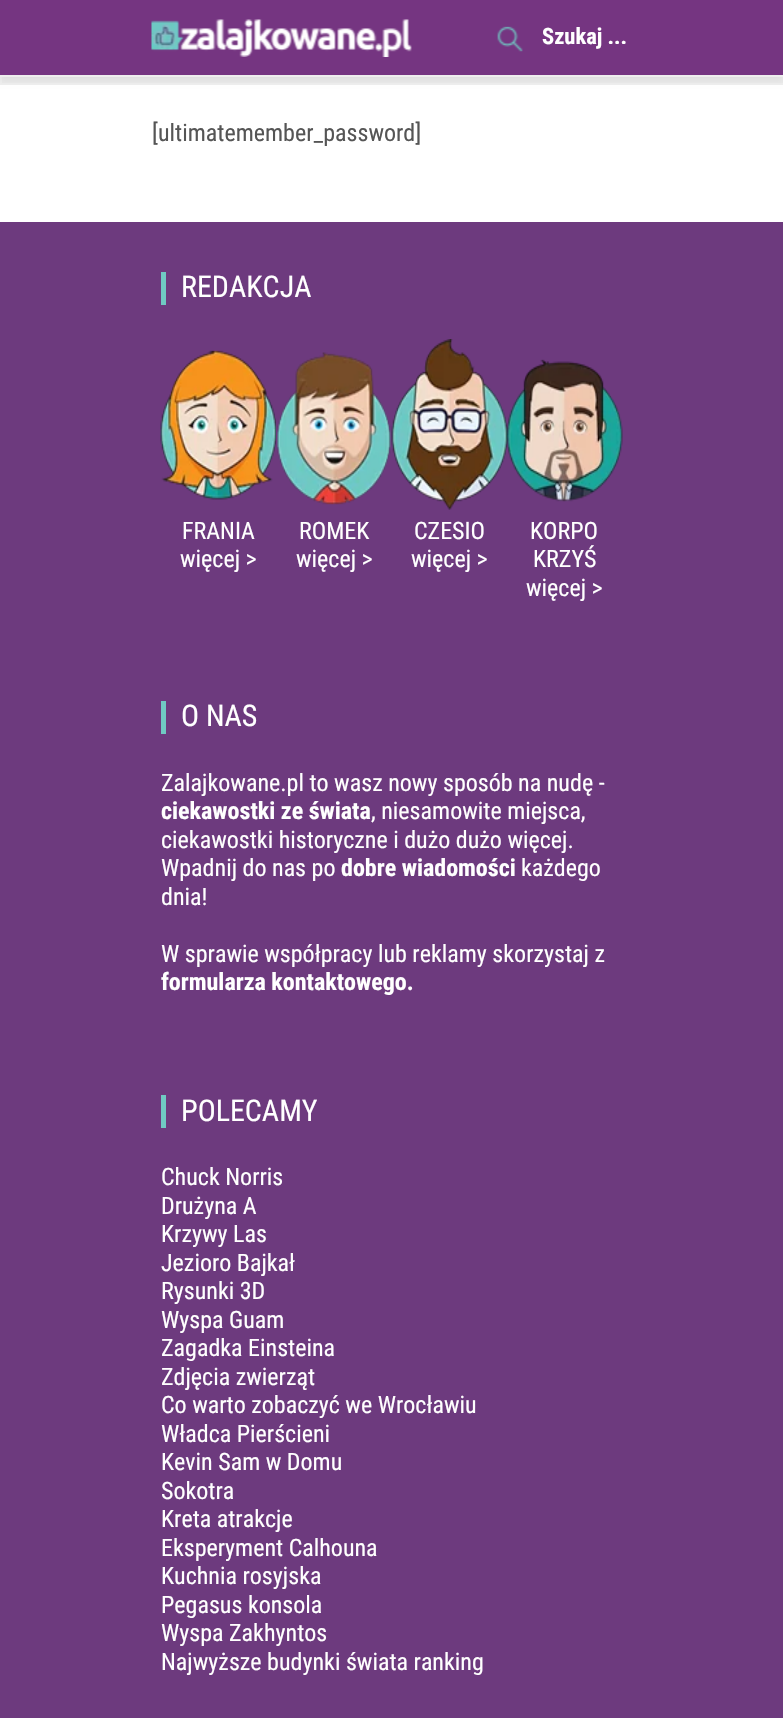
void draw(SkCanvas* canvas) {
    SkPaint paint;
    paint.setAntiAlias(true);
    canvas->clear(0xFFFFFFFF);
    paint.setColor(0xFFEAEAEA);
    canvas->drawRect(SkRect::MakeXYWH(2, 77, 781, 6), paint);
    paint.setColor(0xFFEEEEEE);
    canvas->drawRect(SkRect::MakeXYWH(0, 83, 783, 2), paint);
    canvas->drawRect(SkRect::MakeXYWH(0, 77, 2, 7), paint);
    paint.setColor(0x0D000000);
    paint.setMaskFilter(SkMaskFilter::MakeBlur(kNormal_SkBlurStyle, 3));
    canvas->drawRect(SkRect::MakeXYWH(0, 3, 783, 77), paint);
    paint.setMaskFilter(nullptr);
    paint.setColor(0xFF753581);
    canvas->drawRect(SkRect::MakeXYWH(0, 0, 783, 75), paint);
    paint.setColor(0xFFEEEEEE);
    canvas->drawRect(SkRect::MakeXYWH(0, 75, 783, 2), paint);
    canvas->drawImageRect(SkImages::DeferredFromEncodedData(SkData::MakeFromFileName("img1.png")), SkRect::MakeXYWH(151, 19, 261, 38), SkSamplingOptions());
    canvas->drawImageRect(SkImages::DeferredFromEncodedData(SkData::MakeFromFileName("img2.png")), SkRect::MakeXYWH(497, 26, 26, 26), SkSamplingOptions());
    SkFont font1(fontMgr->matchFamilyStyle("Roboto Condensed", SkFontStyle::Bold()), 22.5f);
    font1.setSubpixel(true);
    paint.setColor(0xFFFFFFFF);
    canvas->drawString("Szukaj ...", 542, 44, font1, paint);
    SkFont font2(fontMgr->matchFamilyStyle("Roboto Condensed", SkFontStyle::Normal()), 24);
    font2.setSubpixel(true);
    paint.setColor(0xFF555555);
    canvas->drawString("[ultimatemember_password]", 152, 141, font2, paint);
    paint.setColor(0xFF6D3A7E);
    canvas->drawRect(SkRect::MakeXYWH(0, 222, 783, 1496), paint);
    paint.setColor(0xFF70C9C3);
    canvas->drawRect(SkRect::MakeXYWH(161, 272, 5, 33), paint);
    SkFont font3(fontMgr->matchFamilyStyle("Roboto Condensed", SkFontStyle::Normal()), 30);
    font3.setSubpixel(true);
    paint.setColor(0xFFFFFFFF);
    canvas->drawString("REDAKCJA", 181, 297, font3, paint);
    canvas->drawImageRect(SkImages::DeferredFromEncodedData(SkData::MakeFromFileName("img3.png")), SkRect::MakeXYWH(160, 350, 116, 150), SkSamplingOptions());
    canvas->drawString("FRANIA", 182, 539, font2, paint);
    canvas->drawString("więcej >", 180, 567, font2, paint);
    canvas->drawImageRect(SkImages::DeferredFromEncodedData(SkData::MakeFromFileName("img4.png")), SkRect::MakeXYWH(277, 352, 114, 153), SkSamplingOptions());
    canvas->drawString("ROMEK", 299, 539, font2, paint);
    canvas->drawString("więcej >", 296, 567, font2, paint);
    canvas->drawImageRect(SkImages::DeferredFromEncodedData(SkData::MakeFromFileName("img5.png")), SkRect::MakeXYWH(391, 339, 116, 171), SkSamplingOptions());
    canvas->drawString("CZESIO", 414, 539, font2, paint);
    canvas->drawString("więcej >", 411, 567, font2, paint);
    canvas->drawImageRect(SkImages::DeferredFromEncodedData(SkData::MakeFromFileName("img6.png")), SkRect::MakeXYWH(507, 359, 116, 143), SkSamplingOptions());
    canvas->drawString("KORPO", 530, 539, font2, paint);
    canvas->drawString("KRZYŚ", 533, 567, font2, paint);
    canvas->drawString("więcej >", 526, 596, font2, paint);
    paint.setColor(0xFF70C9C3);
    canvas->drawRect(SkRect::MakeXYWH(161, 701, 5, 33), paint);
    paint.setColor(0xFFFFFFFF);
    canvas->drawString("O NAS", 181, 726, font3, paint);
    canvas->drawString("Zalajkowane.pl to wasz nowy sposób na nudę -", 161, 791, font2, paint);
    SkFont font4(fontMgr->matchFamilyStyle("Roboto Condensed", SkFontStyle::Bold()), 24);
    font4.setSubpixel(true);
    canvas->drawString("ciekawostki ze świata", 161, 819, font4, paint);
    canvas->drawString(", niesamowite miejsca,", 371, 819, font2, paint);
    canvas->drawString("ciekawostki historyczne i dużo dużo więcej.", 161, 848, font2, paint);
    canvas->drawString("Wpadnij do nas po", 161, 876, font2, paint);
    canvas->drawString("dobre wiadomości", 341, 876, font4, paint);
    canvas->drawString("każdego", 521, 876, font2, paint);
    canvas->drawString("dnia!", 161, 905, font2, paint);
    canvas->drawString("W sprawie współpracy lub reklamy skorzystaj z", 161, 962, font2, paint);
    canvas->drawString("formularza kontaktowego.", 161, 990, font4, paint);
    paint.setColor(0xFF70C9C3);
    canvas->drawRect(SkRect::MakeXYWH(161, 1095, 5, 33), paint);
    paint.setColor(0xFFFFFFFF);
    canvas->drawString("POLECAMY", 181, 1121, font3, paint);
    canvas->drawString("Chuck Norris", 161, 1185, font2, paint);
    canvas->drawString("Drużyna A", 161, 1214, font2, paint);
    canvas->drawString("Krzywy Las", 161, 1242, font2, paint);
    canvas->drawString("Jezioro Bajkał", 161, 1271, font2, paint);
    canvas->drawString("Rysunki 3D", 161, 1299, font2, paint);
    canvas->drawString("Wyspa Guam", 161, 1328, font2, paint);
    canvas->drawString("Zagadka Einsteina", 161, 1356, font2, paint);
    canvas->drawString("Zdjęcia zwierząt", 161, 1385, font2, paint);
    canvas->drawString("Co warto zobaczyć we Wrocławiu", 161, 1413, font2, paint);
    canvas->drawString("Władca Pierścieni", 161, 1442, font2, paint);
    canvas->drawString("Kevin Sam w Domu", 161, 1470, font2, paint);
    canvas->drawString("Sokotra", 161, 1499, font2, paint);
    canvas->drawString("Kreta atrakcje", 161, 1527, font2, paint);
    canvas->drawString("Eksperyment Calhouna", 161, 1556, font2, paint);
    canvas->drawString("Kuchnia rosyjska", 161, 1584, font2, paint);
    canvas->drawString("Pegasus konsola", 161, 1613, font2, paint);
    canvas->drawString("Wyspa Zakhyntos", 161, 1641, font2, paint);
    canvas->drawString("Najwyższe budynki świata ranking", 161, 1670, font2, paint);
}
